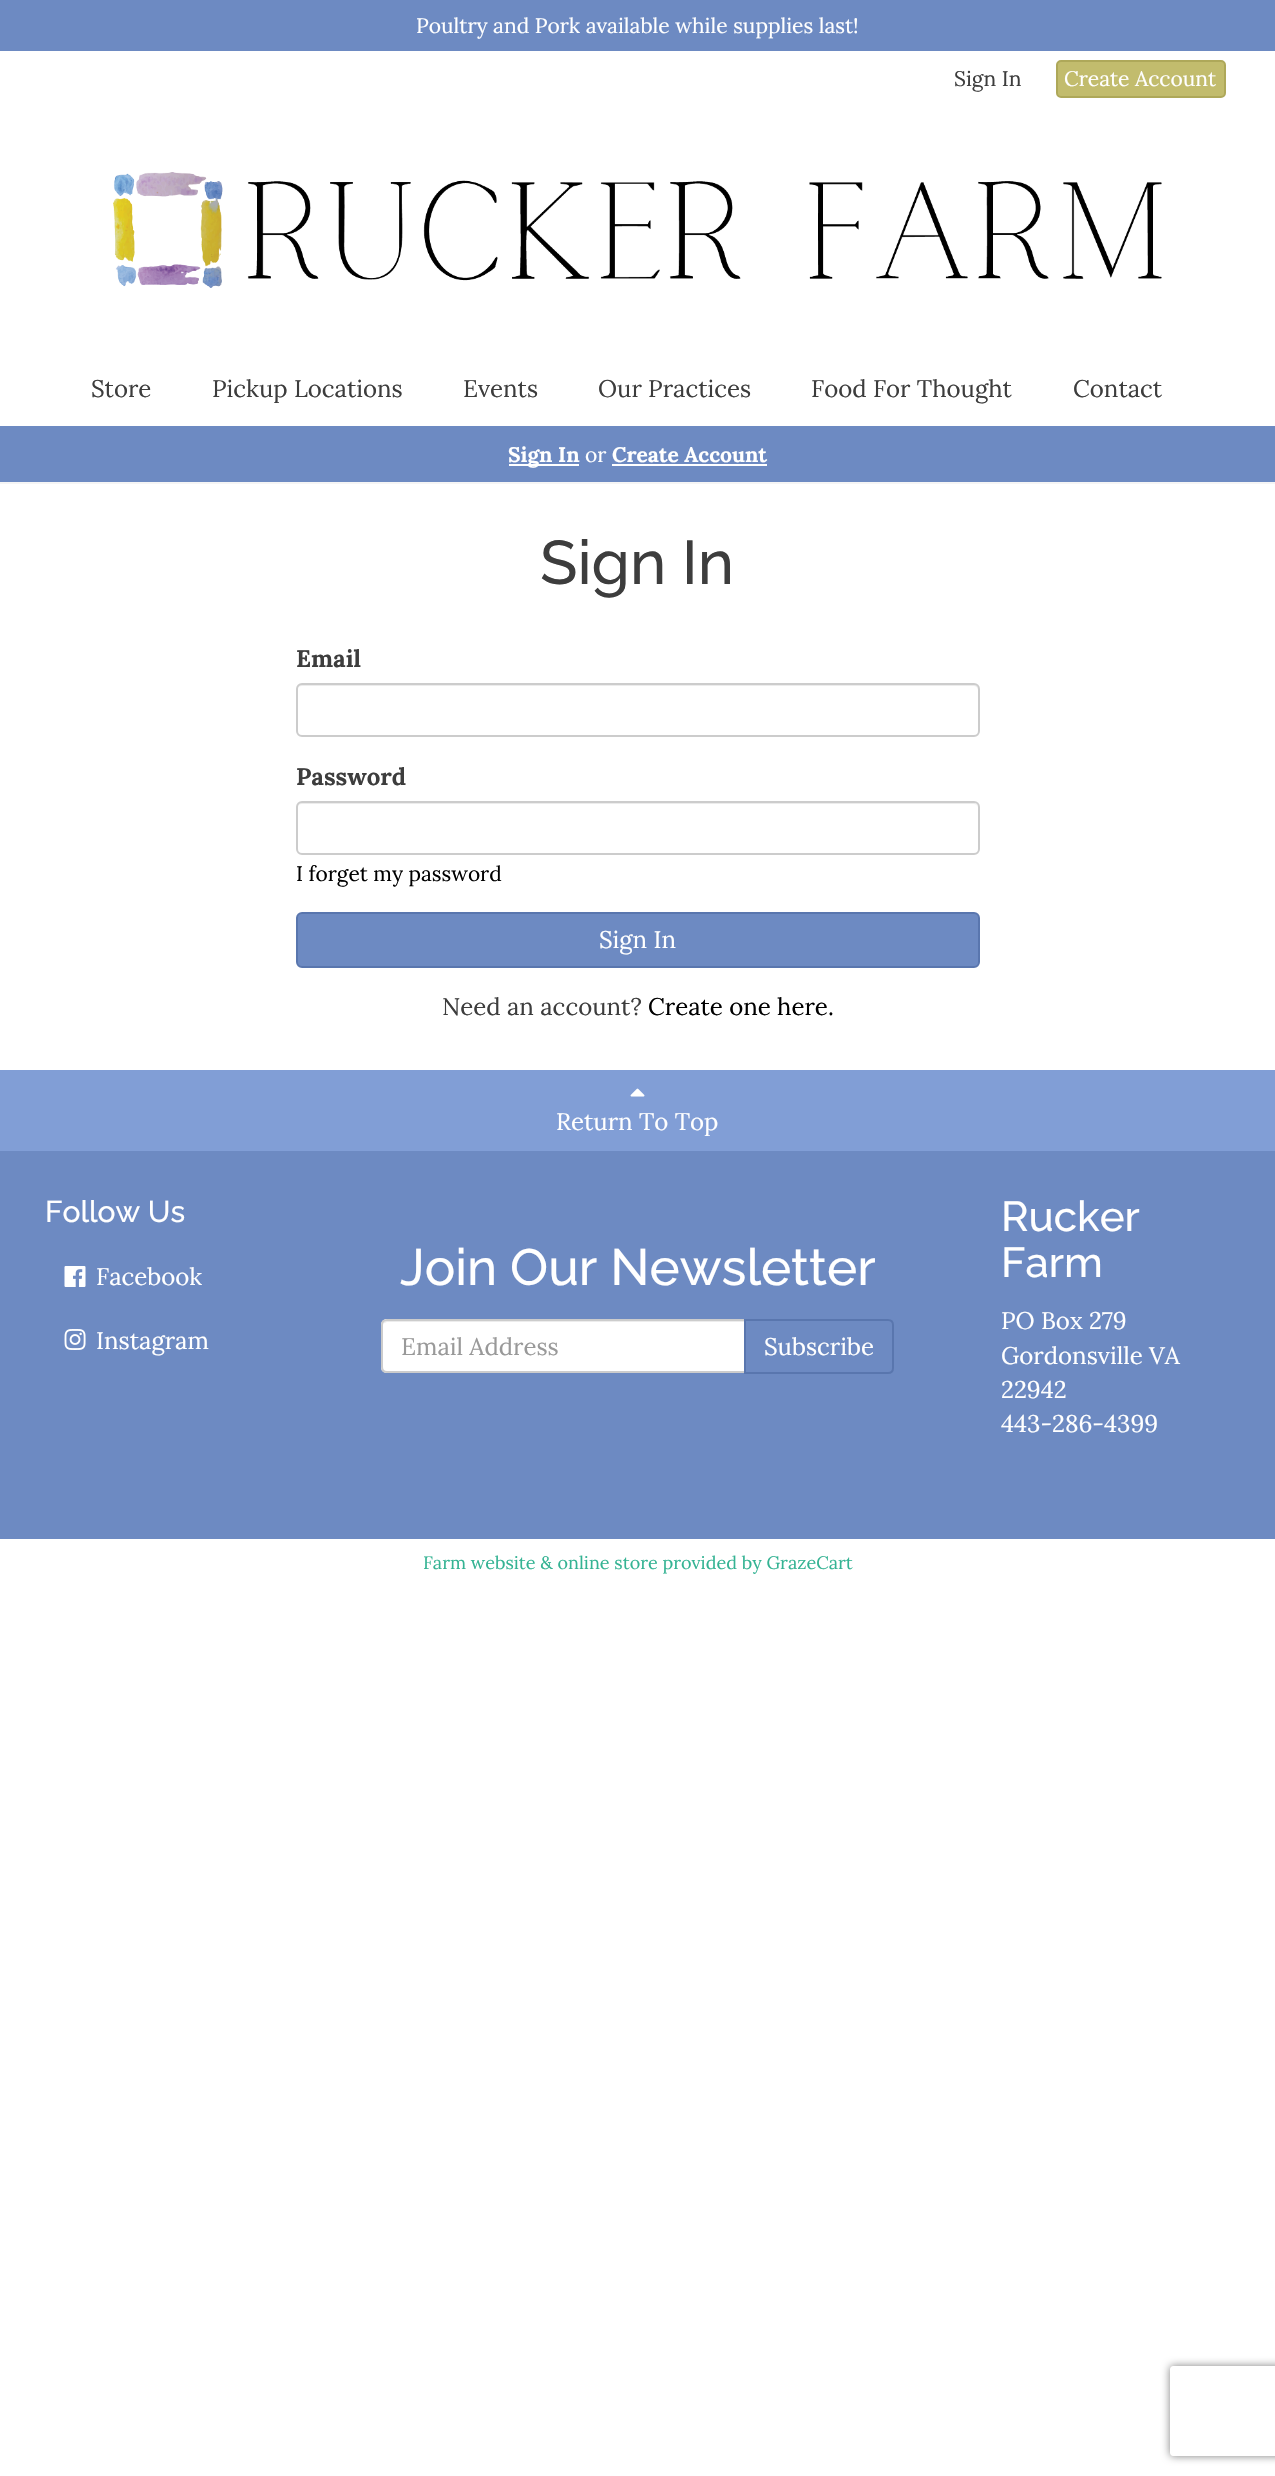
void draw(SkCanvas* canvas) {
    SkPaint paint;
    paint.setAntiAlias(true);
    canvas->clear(0xFFFFFFFF);
    paint.setColor(0xFF6D8AC2);
    canvas->drawRect(SkRect::MakeXYWH(0, 0, 1275, 51), paint);
    SkFont font1(fontMgr->matchFamilyStyle("Lora", SkFontStyle::Normal()), 21);
    font1.setSubpixel(true);
    paint.setColor(0xFFFFFFFF);
    canvas->drawString("Poultry and Pork available while supplies last!", 416, 33, font1, paint);
    paint.setColor(0xFFF5F5F5);
    canvas->drawRect(SkRect::MakeXYWH(0, 482, 1275, 2), paint);
    paint.setColor(0xFF3D3D3D);
    canvas->drawString("Sign In", 954, 86, font1, paint);
    paint.setColor(0xFFC2BC6D);
    canvas->drawRoundRect(SkRect::MakeXYWH(1057, 61, 168, 36), 4, 4, paint);
    paint.setStyle(SkPaint::kStroke_Style);
    paint.setStrokeWidth(2);
    paint.setColor(0xFFAEA859);
    canvas->drawRoundRect(SkRect::MakeXYWH(1057, 61, 168, 36), 4, 4, paint);
    paint.setStyle(SkPaint::kFill_Style);
    paint.setColor(0xFFFFFFFF);
    canvas->drawString("Create Account", 1064, 86, font1, paint);
    canvas->drawImageRect(SkImages::DeferredFromEncodedData(SkData::MakeFromFileName("img1.png")), SkRect::MakeXYWH(113, 172, 1049, 116), SkSamplingOptions());
    SkFont font2(fontMgr->matchFamilyStyle("Lora", SkFontStyle::Normal()), 24);
    font2.setSubpixel(true);
    paint.setColor(0xFF3D3D3D);
    canvas->drawString("Store", 91, 397, font2, paint);
    canvas->drawString("Pickup Locations", 212, 397, font2, paint);
    canvas->drawString("Events", 463, 397, font2, paint);
    canvas->drawString("Our Practices", 598, 397, font2, paint);
    canvas->drawString("Food For Thought", 811, 397, font2, paint);
    canvas->drawString("Contact", 1073, 397, font2, paint);
    paint.setColor(0xFF6D8AC2);
    canvas->drawRect(SkRect::MakeXYWH(0, 426, 1275, 56), paint);
    paint.setColor(0xFFFFFFFF);
    canvas->drawRect(SkRect::MakeXYWH(509, 464, 70, 2), paint);
    SkFont font3(fontMgr->matchFamilyStyle("Lora", SkFontStyle::Bold()), 21);
    font3.setSubpixel(true);
    canvas->drawString("Sign In", 508, 462, font3, paint);
    canvas->drawString("or", 585, 462, font1, paint);
    canvas->drawString("Create Account", 612, 462, font3, paint);
    canvas->drawRect(SkRect::MakeXYWH(612, 464, 155, 2), paint);
    SkFont font4(fontMgr->matchFamilyStyle("Raleway", SkFontStyle(500, SkFontStyle::kNormal_Width, SkFontStyle::kUpright_Slant)), 61.5f);
    font4.setSubpixel(true);
    paint.setColor(0xFF3D3D3D);
    canvas->drawString("Sign In", 540, 584, font4, paint);
    SkFont font5(fontMgr->matchFamilyStyle("Lora", SkFontStyle::Bold()), 24);
    font5.setSubpixel(true);
    canvas->drawString("Email", 296, 667, font5, paint);
    paint.setColor(0xFFECECEC);
    canvas->drawPath(SkPathBuilder().moveTo(302, 686).lineTo(974, 686).cubicTo(976, 686, 978, 688, 978, 690).lineTo(978, 689).cubicTo(978, 686, 976, 684, 973, 684).lineTo(302, 684).cubicTo(299, 684, 297, 686, 297, 689).lineTo(297, 690).cubicTo(297, 688, 299, 686, 302, 686).close().detach(), paint);
    paint.setStyle(SkPaint::kStroke_Style);
    paint.setColor(0xFFCCCCCC);
    canvas->drawRoundRect(SkRect::MakeXYWH(297, 684, 682, 52), 5, 5, paint);
    paint.setStyle(SkPaint::kFill_Style);
    paint.setColor(0xFF3D3D3D);
    canvas->drawString("Password", 296, 785, font5, paint);
    paint.setColor(0xFFECECEC);
    canvas->drawPath(SkPathBuilder().moveTo(302, 804).lineTo(974, 804).cubicTo(976, 804, 978, 806, 978, 808).cubicTo(978, 805, 976, 803, 973, 803).lineTo(302, 803).cubicTo(299, 803, 297, 805, 297, 808).cubicTo(297, 806, 299, 804, 302, 804).close().detach(), paint);
    paint.setStyle(SkPaint::kStroke_Style);
    paint.setColor(0xFFCCCCCC);
    canvas->drawRoundRect(SkRect::MakeXYWH(297, 802, 682, 52), 5, 5, paint);
    SkFont font6(fontMgr->matchFamilyStyle("Lora", SkFontStyle::Normal()), 20.9f);
    font6.setSubpixel(true);
    paint.setStyle(SkPaint::kFill_Style);
    paint.setColor(0xFF000000);
    canvas->drawString("I forget my password", 296, 881, font6, paint);
    paint.setColor(0xFF6D8AC2);
    canvas->drawRoundRect(SkRect::MakeXYWH(297, 913, 682, 54), 5, 5, paint);
    paint.setStyle(SkPaint::kStroke_Style);
    paint.setColor(0xFF5976AE);
    canvas->drawRoundRect(SkRect::MakeXYWH(297, 913, 682, 54), 5, 5, paint);
    paint.setStyle(SkPaint::kFill_Style);
    paint.setColor(0xFFFFFFFF);
    canvas->drawString("Sign In", 599, 948, font2, paint);
    paint.setColor(0xFF3D3D3D);
    canvas->drawString("Need an account?", 442, 1015, font2, paint);
    paint.setColor(0xFF000000);
    canvas->drawString("Create one here.", 648, 1015, font2, paint);
    paint.setColor(0xFF819ED6);
    canvas->drawRect(SkRect::MakeXYWH(0, 1070, 1275, 81), paint);
    canvas->drawImageRect(SkImages::DeferredFromEncodedData(SkData::MakeFromFileName("img2.png")), SkRect::MakeXYWH(630, 1088, 15, 9), SkSamplingOptions());
    paint.setColor(0xFFFFFFFF);
    canvas->drawString("Return To Top", 556, 1130, font2, paint);
    paint.setColor(0xFF6D8AC2);
    canvas->drawRect(SkRect::MakeXYWH(0, 1151, 1275, 388), paint);
    SkFont font7(fontMgr->matchFamilyStyle("Raleway", SkFontStyle(500, SkFontStyle::kNormal_Width, SkFontStyle::kUpright_Slant)), 30);
    font7.setSubpixel(true);
    paint.setColor(0xFFFFFFFF);
    canvas->drawString("Follow Us", 45, 1222, font7, paint);
    canvas->drawImageRect(SkImages::DeferredFromEncodedData(SkData::MakeFromFileName("img3.png")), SkRect::MakeXYWH(64, 1266, 22, 21), SkSamplingOptions());
    canvas->drawString("Facebook", 96, 1285, font2, paint);
    canvas->drawImageRect(SkImages::DeferredFromEncodedData(SkData::MakeFromFileName("img4.png")), SkRect::MakeXYWH(64, 1329, 22, 21), SkSamplingOptions());
    canvas->drawString("Instagram", 96, 1349, font2, paint);
    SkFont font8(fontMgr->matchFamilyStyle("Raleway", SkFontStyle(500, SkFontStyle::kNormal_Width, SkFontStyle::kUpright_Slant)), 51);
    font8.setSubpixel(true);
    canvas->drawString("Join Our Newsletter", 400, 1285, font8, paint);
    canvas->drawPath(SkPathBuilder().moveTo(387, 1319).lineTo(746, 1319).lineTo(746, 1373).lineTo(387, 1373).cubicTo(383.5f, 1373, 381, 1370.5f, 381, 1367).lineTo(381, 1325).cubicTo(381, 1321.5f, 383.5f, 1319, 387, 1319).close().detach(), paint);
    paint.setColor(0xFFECECEC);
    canvas->drawPath(SkPathBuilder().moveTo(387, 1322).lineTo(744, 1322).lineTo(744, 1320).lineTo(388, 1320).cubicTo(386, 1320, 384, 1322, 383, 1324).cubicTo(384, 1323, 386, 1322, 387, 1322).close().detach(), paint);
    paint.setStyle(SkPaint::kStroke_Style);
    paint.setColor(0xFFCCCCCC);
    canvas->drawPath(SkPathBuilder().moveTo(387, 1320).lineTo(745, 1320).lineTo(745, 1372).lineTo(387, 1372).cubicTo(384, 1372, 382, 1370, 382, 1367).lineTo(382, 1325).cubicTo(382, 1322, 384, 1320, 387, 1320).close().detach(), paint);
    paint.setStyle(SkPaint::kFill_Style);
    paint.setColor(0xFF999999);
    canvas->drawString("Email Address", 401, 1355, font2, paint);
    paint.setColor(0xFF6D8AC2);
    canvas->drawPath(SkPathBuilder().moveTo(745, 1320).lineTo(888, 1320).cubicTo(891, 1320, 893, 1322, 893, 1325).lineTo(893, 1368).cubicTo(893, 1371, 891, 1373, 888, 1373).lineTo(745, 1373).close().detach(), paint);
    paint.setStyle(SkPaint::kStroke_Style);
    paint.setColor(0xFF5976AE);
    canvas->drawPath(SkPathBuilder().moveTo(745, 1320).lineTo(888, 1320).cubicTo(891, 1320, 893, 1322, 893, 1325).lineTo(893, 1368).cubicTo(893, 1371, 891, 1373, 888, 1373).lineTo(745, 1373).close().detach(), paint);
    paint.setStyle(SkPaint::kFill_Style);
    paint.setColor(0xFFFFFFFF);
    canvas->drawString("Subscribe", 764, 1355, font2, paint);
    SkFont font9(fontMgr->matchFamilyStyle("Raleway", SkFontStyle(500, SkFontStyle::kNormal_Width, SkFontStyle::kUpright_Slant)), 42);
    font9.setSubpixel(true);
    canvas->drawString("Rucker", 1001, 1231, font9, paint);
    canvas->drawString("Farm", 1001, 1277, font9, paint);
    canvas->drawString("PO Box 279", 1001, 1329, font2, paint);
    canvas->drawString("Gordonsville VA", 1001, 1364, font2, paint);
    canvas->drawString("22942", 1001, 1398, font2, paint);
    canvas->drawString("443-286-4399", 1001, 1432, font2, paint);
    SkFont font10(fontMgr->matchFamilyStyle("Lora", SkFontStyle::Normal()), 18);
    font10.setSubpixel(true);
    paint.setColor(0xFF34B393);
    canvas->drawString("Farm website & online store provided by GrazeCart", 423, 1569, font10, paint);
    canvas->save();
    canvas->clipPath(SkPathBuilder(SkPathFillType::kEvenOdd).moveTo(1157, 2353).lineTo(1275, 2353).lineTo(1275, 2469).lineTo(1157, 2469).close().moveTo(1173, 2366).lineTo(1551, 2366).cubicTo(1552.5f, 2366, 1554, 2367.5f, 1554, 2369).lineTo(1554, 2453).cubicTo(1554, 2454.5f, 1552.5f, 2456, 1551, 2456).lineTo(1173, 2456).cubicTo(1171.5f, 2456, 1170, 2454.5f, 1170, 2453).lineTo(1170, 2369).cubicTo(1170, 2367.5f, 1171.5f, 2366, 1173, 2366).close().detach(), true);
    paint.setColor(0xFF808080);
    paint.setMaskFilter(SkMaskFilter::MakeBlur(kNormal_SkBlurStyle, 4));
    canvas->drawRoundRect(SkRect::MakeXYWH(1170, 2366, 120, 90), 3, 3, paint);
    paint.setMaskFilter(nullptr);
    canvas->restore();
}
